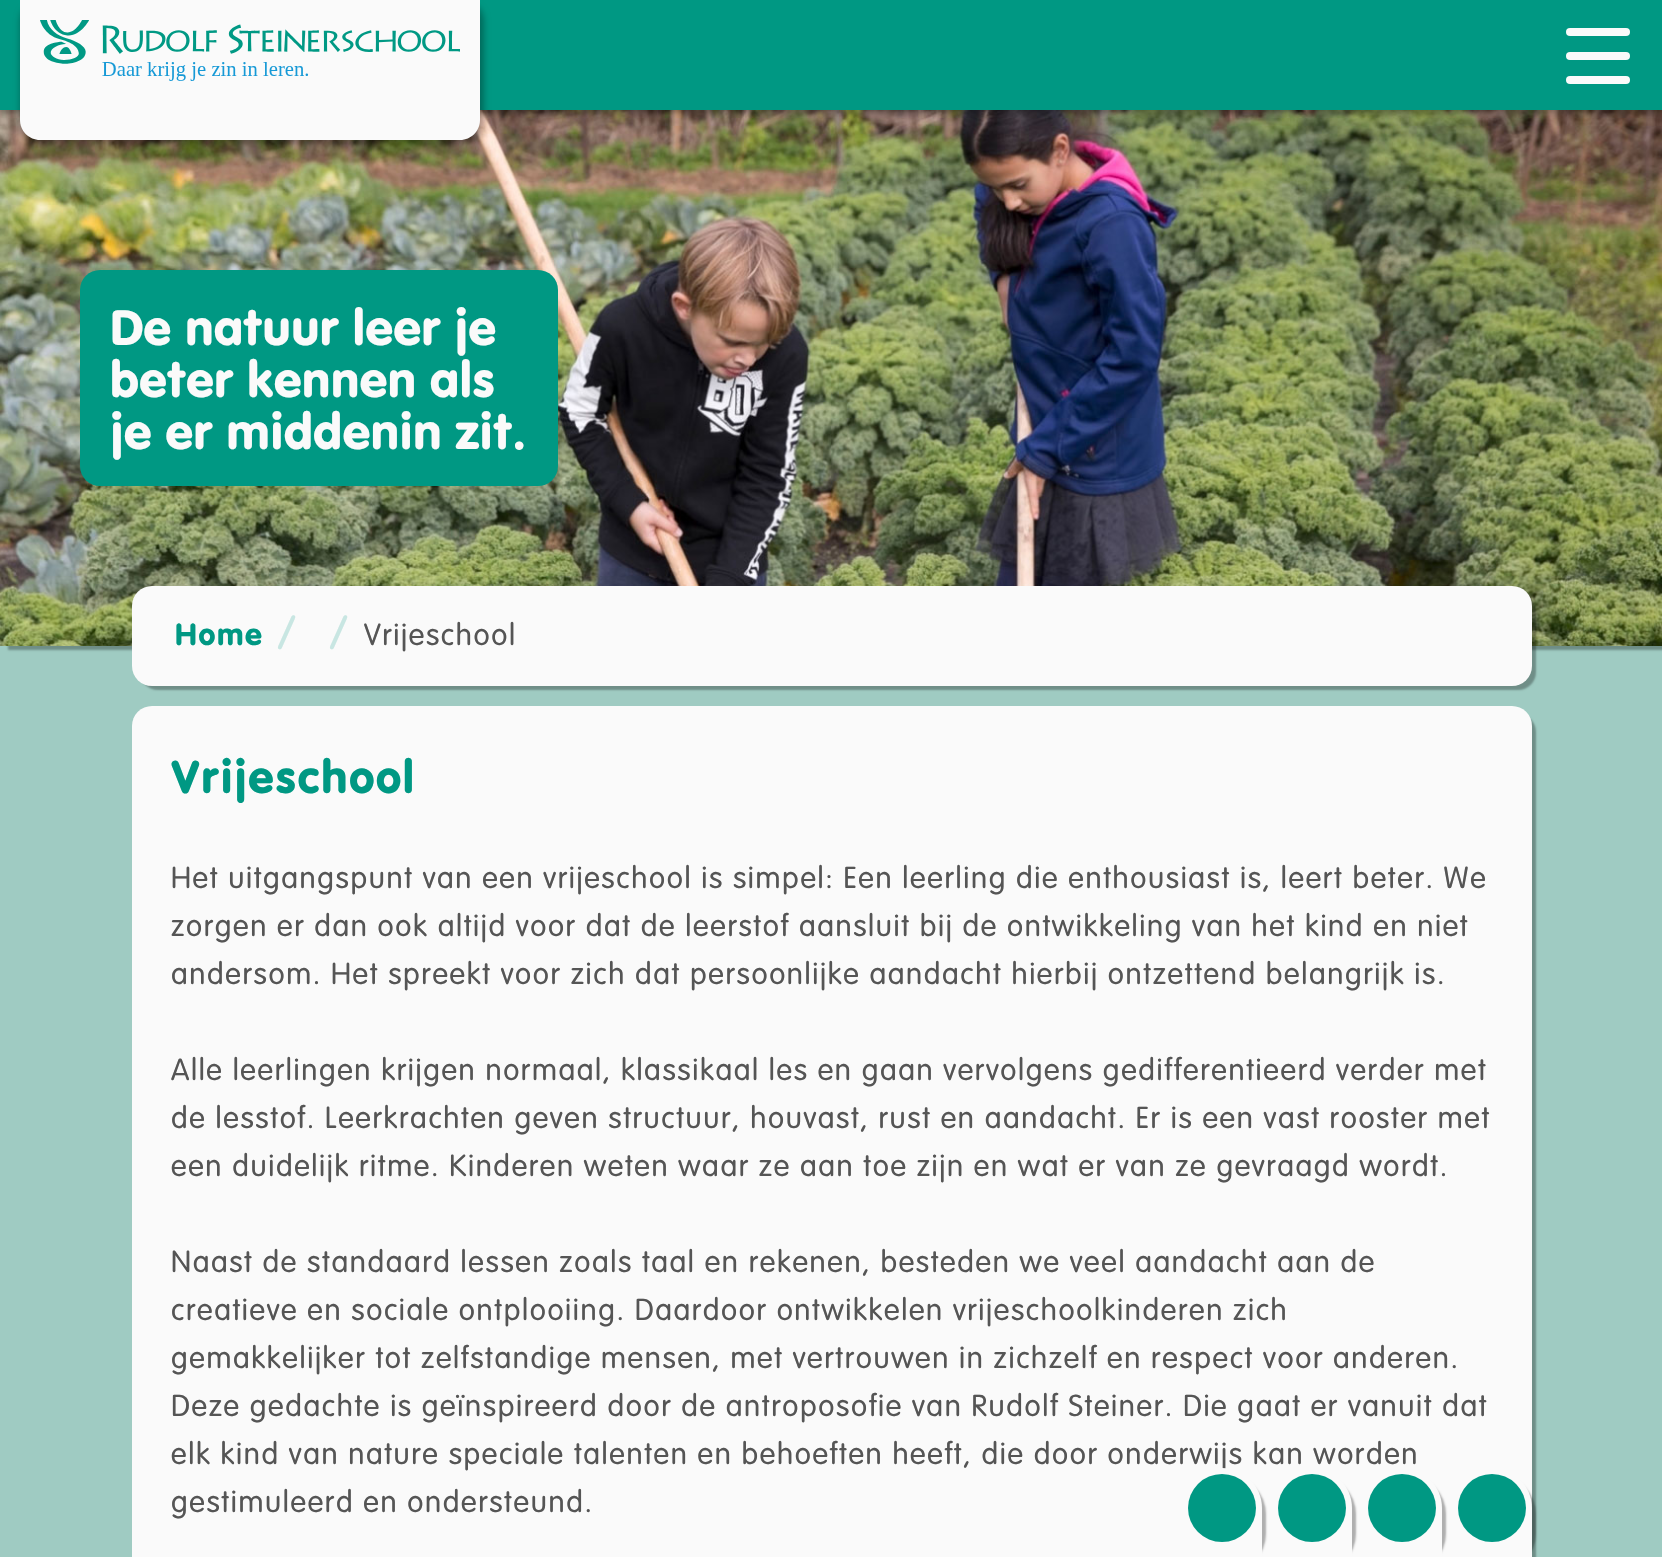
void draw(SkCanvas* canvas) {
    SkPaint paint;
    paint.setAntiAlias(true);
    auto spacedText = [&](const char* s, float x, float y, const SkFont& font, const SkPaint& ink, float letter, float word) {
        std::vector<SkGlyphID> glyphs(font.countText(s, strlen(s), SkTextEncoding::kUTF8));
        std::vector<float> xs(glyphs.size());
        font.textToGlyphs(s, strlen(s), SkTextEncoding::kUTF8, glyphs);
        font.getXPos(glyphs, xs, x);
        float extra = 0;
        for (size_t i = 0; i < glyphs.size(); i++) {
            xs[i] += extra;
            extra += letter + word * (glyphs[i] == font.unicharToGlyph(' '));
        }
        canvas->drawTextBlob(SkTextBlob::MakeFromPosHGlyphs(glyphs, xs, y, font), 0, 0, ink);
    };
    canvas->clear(0xFF9FCBC2);
    paint.setColor(0x4D000000);
    paint.setMaskFilter(SkMaskFilter::MakeBlur(kNormal_SkBlurStyle, 1));
    canvas->drawRect(SkRect::MakeXYWH(8, 118, 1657, 532), paint);
    paint.setMaskFilter(nullptr);
    canvas->drawImageRect(SkImages::DeferredFromEncodedData(SkData::MakeFromFileName("img2.png")), SkRect::MakeXYWH(0, 110, 1662, 536), SkSamplingOptions());
    paint.setMaskFilter(SkMaskFilter::MakeBlur(kNormal_SkBlurStyle, 3));
    canvas->drawRect(SkRect::MakeXYWH(0, 0, 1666, 114), paint);
    paint.setMaskFilter(nullptr);
    paint.setColor(0xFF009883);
    canvas->drawRect(SkRect::MakeXYWH(0, 0, 1662, 110), paint);
    paint.setColor(0x4D000000);
    paint.setMaskFilter(SkMaskFilter::MakeBlur(kNormal_SkBlurStyle, 3));
    canvas->drawRoundRect(SkRect::MakeXYWH(20, 0, 464, 144), 22, 22, paint);
    paint.setMaskFilter(nullptr);
    paint.setColor(0xFFFAFAFA);
    canvas->drawPath(SkPathBuilder().moveTo(20, 0).lineTo(480, 0).lineTo(480, 120).cubicTo(480, 131, 471, 140, 460, 140).lineTo(40, 140).cubicTo(29, 140, 20, 131, 20, 120).close().detach(), paint);
    canvas->drawImageRect(SkImages::DeferredFromEncodedData(SkData::MakeFromFileName("img1.png")), SkRect::MakeXYWH(40, 20, 420, 61), SkSamplingOptions());
    canvas->drawRoundRect(SkRect::MakeXYWH(1566, 28, 64, 8), 4, 4, paint);
    canvas->drawRoundRect(SkRect::MakeXYWH(1566, 52, 64, 8), 4, 4, paint);
    canvas->drawRoundRect(SkRect::MakeXYWH(1566, 76, 64, 8), 4, 4, paint);
    paint.setColor(0xFF009883);
    canvas->drawRoundRect(SkRect::MakeXYWH(80, 270, 478, 216), 20, 20, paint);
    SkFont font1(fontMgr->matchFamilyStyle("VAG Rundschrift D", SkFontStyle::Normal()), 52);
    font1.setSubpixel(true);
    paint.setColor(0xFFFAFAFA);
    spacedText("De natuur leer je", 110, 345, font1, paint, 0.5f, 0);
    spacedText("beter kennen als", 110, 397, font1, paint, 0.5f, 0);
    spacedText("je er middenin zit.", 110, 449, font1, paint, 0.5f, 0);
    paint.setColor(0x4D000000);
    paint.setMaskFilter(SkMaskFilter::MakeBlur(kNormal_SkBlurStyle, 1));
    canvas->drawRoundRect(SkRect::MakeXYWH(140, 594, 1396, 96), 18, 18, paint);
    paint.setMaskFilter(nullptr);
    paint.setColor(0xFFFAFAFA);
    canvas->drawRoundRect(SkRect::MakeXYWH(132, 586, 1400, 100), 20, 20, paint);
    SkFont font2(fontMgr->matchFamilyStyle("VAG Rundschrift D", SkFontStyle::Normal()), 32);
    font2.setSubpixel(true);
    paint.setColor(0xFF009883);
    spacedText("Home", 175, 645, font2, paint, 1.6f, 0);
    SkFont font3(fontMgr->matchFamilyStyle("VAG Rundschrift D", SkFontStyle(300, SkFontStyle::kNormal_Width, SkFontStyle::kUpright_Slant)), 50);
    font3.setSubpixel(true);
    paint.setColor(0xFFC8E6E2);
    spacedText("/", 277, 649, font3, paint, 1.6f, 0);
    spacedText("/", 329, 649, font3, paint, 1.6f, 0);
    SkFont font4(fontMgr->matchFamilyStyle("VAG Rundschrift D", SkFontStyle(300, SkFontStyle::kNormal_Width, SkFontStyle::kUpright_Slant)), 32);
    font4.setSubpixel(true);
    paint.setColor(0xFF555555);
    spacedText("Vrijeschool", 364, 645, font4, paint, 1.6f, 0);
    paint.setColor(0x4D000000);
    paint.setMaskFilter(SkMaskFilter::MakeBlur(kNormal_SkBlurStyle, 1));
    canvas->drawRoundRect(SkRect::MakeXYWH(140, 714, 1396, 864), 18, 18, paint);
    paint.setMaskFilter(nullptr);
    paint.setColor(0xFFFAFAFA);
    canvas->drawRoundRect(SkRect::MakeXYWH(132, 706, 1400, 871), 20, 20, paint);
    SkFont font5(fontMgr->matchFamilyStyle("VAG Rundschrift D", SkFontStyle::Normal()), 48);
    font5.setSubpixel(true);
    paint.setColor(0xFF009883);
    spacedText("Vrijeschool", 171, 793, font5, paint, 1.6f, 0);
    paint.setColor(0xFF555555);
    spacedText("Het uitgangspunt van een vrijeschool is simpel: Een leerling die enthousiast is, leert beter. We", 171, 888, font4, paint, 1.6f, 0);
    spacedText("zorgen er dan ook altijd voor dat de leerstof aansluit bij de ontwikkeling van het kind en niet", 171, 936, font4, paint, 1.6f, 0);
    spacedText("andersom. Het spreekt voor zich dat persoonlijke aandacht hierbij ontzettend belangrijk is.", 171, 984, font4, paint, 1.6f, 0);
    spacedText("Alle leerlingen krijgen normaal, klassikaal les en gaan vervolgens gedifferentieerd verder met", 171, 1080, font4, paint, 1.6f, 0);
    spacedText("de lesstof. Leerkrachten geven structuur, houvast, rust en aandacht. Er is een vast rooster met", 171, 1128, font4, paint, 1.6f, 0);
    spacedText("een duidelijk ritme. Kinderen weten waar ze aan toe zijn en wat er van ze gevraagd wordt.", 171, 1176, font4, paint, 1.6f, 0);
    spacedText("Naast de standaard lessen zoals taal en rekenen, besteden we veel aandacht aan de", 171, 1272, font4, paint, 1.6f, 0);
    spacedText("creatieve en sociale ontplooiing. Daardoor ontwikkelen vrijeschoolkinderen zich", 171, 1320, font4, paint, 1.6f, 0);
    spacedText("gemakkelijker tot zelfstandige mensen, met vertrouwen in zichzelf en respect voor anderen.", 171, 1368, font4, paint, 1.6f, 0);
    spacedText("Deze gedachte is geïnspireerd door de antroposofie van Rudolf Steiner. Die gaat er vanuit dat", 171, 1416, font4, paint, 1.6f, 0);
    spacedText("elk kind van nature speciale talenten en behoeften heeft, die door onderwijs kan worden", 171, 1464, font4, paint, 1.6f, 0);
    spacedText("gestimuleerd en ondersteund.", 171, 1512, font4, paint, 1.6f, 0);
    paint.setColor(0x4D000000);
    paint.setMaskFilter(SkMaskFilter::MakeBlur(kNormal_SkBlurStyle, 1));
    canvas->drawRoundRect(SkRect::MakeXYWH(1190, 1476, 76, 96), 38, 38, paint);
    paint.setMaskFilter(nullptr);
    paint.setColor(0xFFFAFAFA);
    canvas->drawPath(SkPathBuilder().moveTo(1222, 1468).cubicTo(1244, 1468, 1262, 1486, 1262, 1508).lineTo(1262, 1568).lineTo(1182, 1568).lineTo(1182, 1508).cubicTo(1182, 1486, 1200, 1468, 1222, 1468).close().detach(), paint);
    paint.setColor(0xFF009883);
    canvas->drawCircle(1222, 1508, 34, paint);
    paint.setColor(0x4D000000);
    paint.setMaskFilter(SkMaskFilter::MakeBlur(kNormal_SkBlurStyle, 1));
    canvas->drawRoundRect(SkRect::MakeXYWH(1280, 1476, 76, 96), 38, 38, paint);
    paint.setMaskFilter(nullptr);
    paint.setColor(0xFFFAFAFA);
    canvas->drawPath(SkPathBuilder().moveTo(1312, 1468).cubicTo(1334, 1468, 1352, 1486, 1352, 1508).lineTo(1352, 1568).lineTo(1272, 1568).lineTo(1272, 1508).cubicTo(1272, 1486, 1290, 1468, 1312, 1468).close().detach(), paint);
    paint.setColor(0xFF009883);
    canvas->drawCircle(1312, 1508, 34, paint);
    paint.setColor(0x4D000000);
    paint.setMaskFilter(SkMaskFilter::MakeBlur(kNormal_SkBlurStyle, 1));
    canvas->drawRoundRect(SkRect::MakeXYWH(1370, 1476, 76, 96), 38, 38, paint);
    paint.setMaskFilter(nullptr);
    paint.setColor(0xFFFAFAFA);
    canvas->drawPath(SkPathBuilder().moveTo(1402, 1468).cubicTo(1424, 1468, 1442, 1486, 1442, 1508).lineTo(1442, 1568).lineTo(1362, 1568).lineTo(1362, 1508).cubicTo(1362, 1486, 1380, 1468, 1402, 1468).close().detach(), paint);
    paint.setColor(0xFF009883);
    canvas->drawCircle(1402, 1508, 34, paint);
    paint.setColor(0x4D000000);
    paint.setMaskFilter(SkMaskFilter::MakeBlur(kNormal_SkBlurStyle, 1));
    canvas->drawRoundRect(SkRect::MakeXYWH(1460, 1476, 76, 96), 38, 38, paint);
    paint.setMaskFilter(nullptr);
    paint.setColor(0xFFFAFAFA);
    canvas->drawPath(SkPathBuilder().moveTo(1492, 1468).cubicTo(1514, 1468, 1532, 1486, 1532, 1508).lineTo(1532, 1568).lineTo(1452, 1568).lineTo(1452, 1508).cubicTo(1452, 1486, 1470, 1468, 1492, 1468).close().detach(), paint);
    paint.setColor(0xFF009883);
    canvas->drawCircle(1492, 1508, 34, paint);
}
